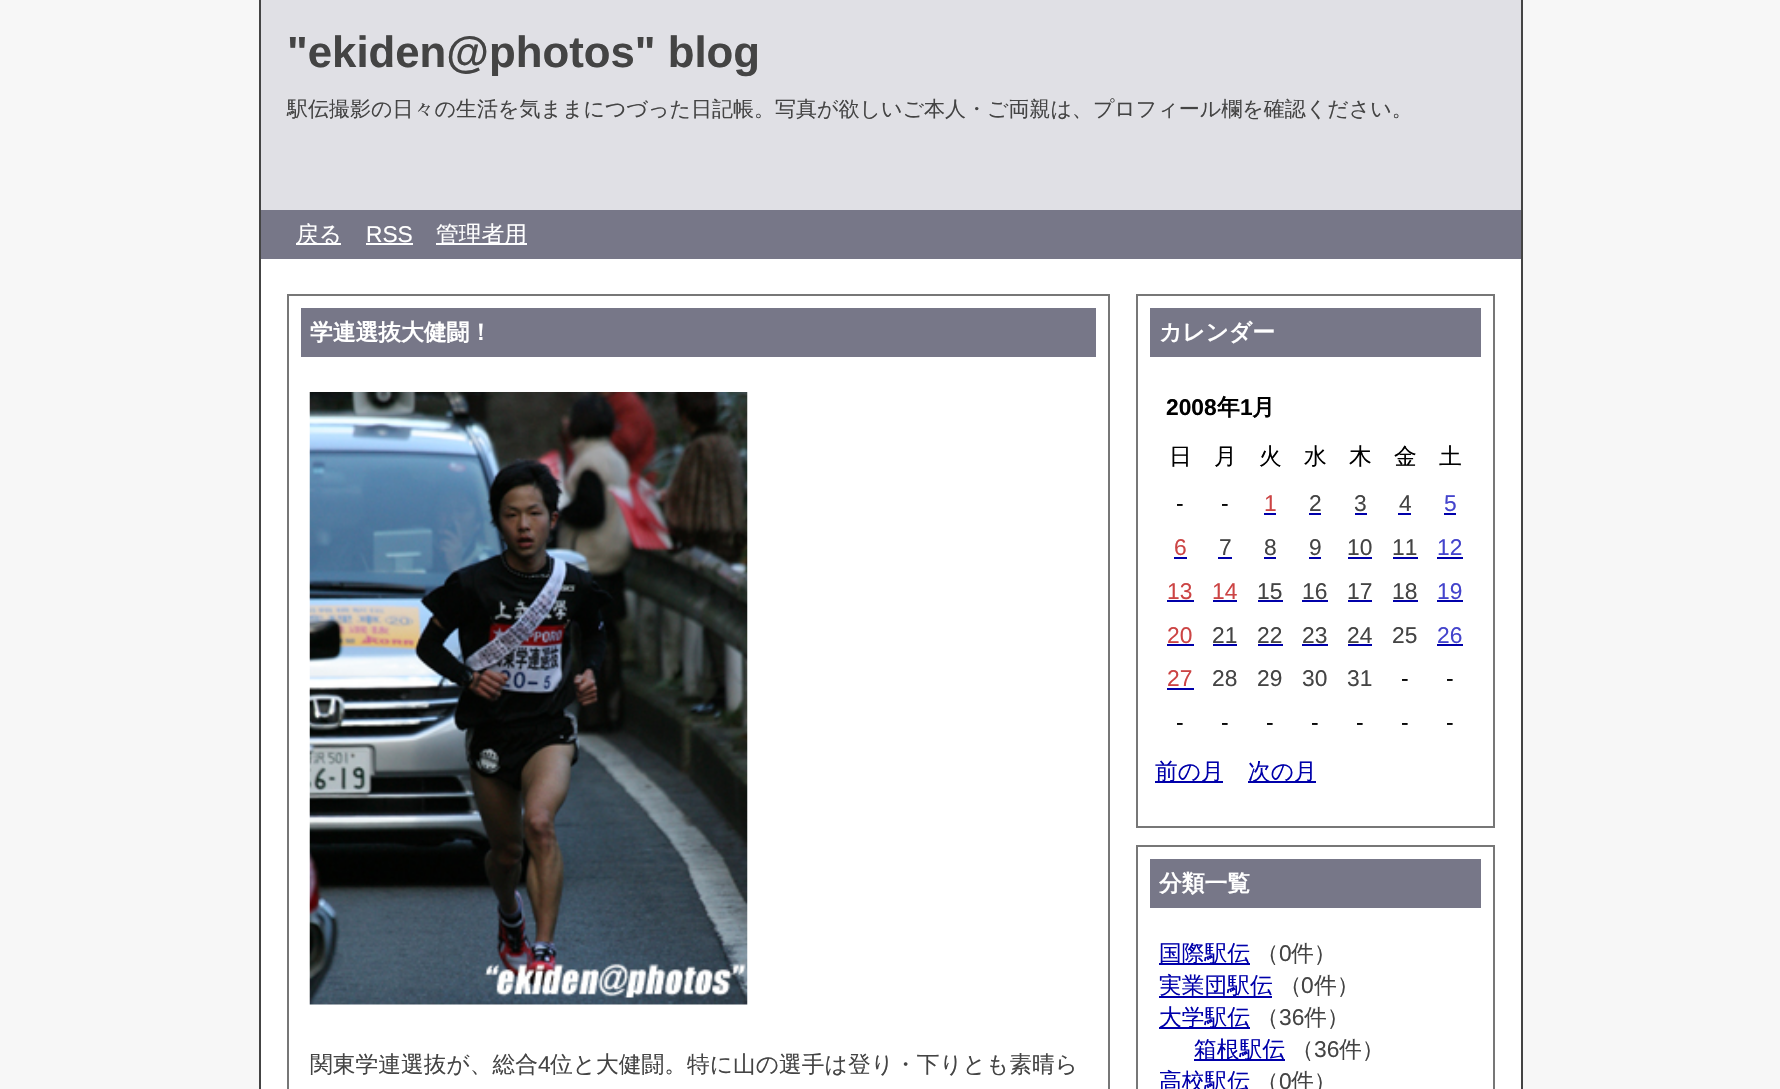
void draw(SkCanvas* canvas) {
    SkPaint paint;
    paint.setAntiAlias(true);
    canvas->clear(0xFFF7F7F7);
    paint.setColor(0xFFFFFFFF);
    canvas->drawRect(SkRect::MakeXYWH(261, 259, 1260, 830), paint);
    paint.setColor(0xFF444444);
    canvas->drawRect(SkRect::MakeXYWH(1521, 0, 2, 1089), paint);
    canvas->drawRect(SkRect::MakeXYWH(259, 0, 2, 1089), paint);
    paint.setColor(0xFFE0E0E5);
    canvas->drawRect(SkRect::MakeXYWH(261, 0, 1260, 210), paint);
    SkFont font1(fontMgr->matchFamilyStyle("Liberation Sans", SkFontStyle::Bold()), 43.75f);
    font1.setSubpixel(true);
    paint.setColor(0xFF444444);
    canvas->drawString("\"ekiden@photos\" blog", 287, 67, font1, paint);
    SkFont font2(fontMgr->matchFamilyStyle("WenQuanYi Zen Hei", SkFontStyle(500, SkFontStyle::kNormal_Width, SkFontStyle::kUpright_Slant)), 21);
    font2.setSubpixel(true);
    canvas->drawString("駅伝撮影の日々の生活を気ままにつづった日記帳。写真が欲しいご本人・ご両親は、プロフィール欄を確認ください。", 287, 116, font2, paint);
    paint.setColor(0xFF777788);
    canvas->drawRect(SkRect::MakeXYWH(261, 210, 1260, 49), paint);
    paint.setColor(0xFFFFFFFF);
    canvas->drawRect(SkRect::MakeXYWH(296, 243, 45, 2), paint);
    SkFont font3(fontMgr->matchFamilyStyle("WenQuanYi Zen Hei", SkFontStyle(500, SkFontStyle::kNormal_Width, SkFontStyle::kUpright_Slant)), 22.75f);
    font3.setSubpixel(true);
    canvas->drawString("戻る", 296, 242, font3, paint);
    SkFont font4(fontMgr->matchFamilyStyle("Liberation Sans", SkFontStyle::Normal()), 22.75f);
    font4.setSubpixel(true);
    canvas->drawString("RSS", 366, 242, font4, paint);
    canvas->drawRect(SkRect::MakeXYWH(366, 243, 47, 2), paint);
    canvas->drawRect(SkRect::MakeXYWH(436, 243, 91, 2), paint);
    canvas->drawString("管理者用", 436, 242, font3, paint);
    paint.setStyle(SkPaint::kStroke_Style);
    paint.setStrokeWidth(2);
    paint.setColor(0xFF777777);
    canvas->drawRect(SkRect::MakeXYWH(288, 295, 821, 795), paint);
    paint.setStyle(SkPaint::kFill_Style);
    paint.setColor(0xFF777788);
    canvas->drawRect(SkRect::MakeXYWH(301, 308, 795, 49), paint);
    SkFont font5(fontMgr->matchFamilyStyle("WenQuanYi Zen Hei", SkFontStyle::Bold()), 22.75f);
    font5.setSubpixel(true);
    paint.setColor(0xFFFFFFFF);
    canvas->drawString("学連選抜大健闘！", 310, 340, font5, paint);
    canvas->drawImageRect(SkImages::DeferredFromEncodedData(SkData::MakeFromFileName("img1.png")), SkRect::MakeXYWH(309, 392, 439, 613), SkSamplingOptions());
    paint.setColor(0xFF444444);
    canvas->drawString("関東学連選抜が、総合", 310, 1072, font3, paint);
    canvas->drawString("4", 538, 1072, font4, paint);
    canvas->drawString("位と大健闘。特に山の選手は登り・下りとも素晴ら", 550, 1072, font3, paint);
    paint.setStyle(SkPaint::kStroke_Style);
    paint.setColor(0xFF777777);
    canvas->drawRect(SkRect::MakeXYWH(1137, 295, 357, 532), paint);
    paint.setStyle(SkPaint::kFill_Style);
    paint.setColor(0xFF777788);
    canvas->drawRect(SkRect::MakeXYWH(1150, 308, 331, 49), paint);
    paint.setColor(0xFFFFFFFF);
    canvas->drawString("カレンダー", 1159, 340, font5, paint);
    SkFont font6(fontMgr->matchFamilyStyle("Liberation Sans", SkFontStyle::Bold()), 22.75f);
    font6.setSubpixel(true);
    paint.setColor(0xFF000000);
    canvas->drawString("2008", 1166, 415, font6, paint);
    canvas->drawString("年", 1217, 415, font5, paint);
    canvas->drawString("1", 1240, 415, font6, paint);
    canvas->drawString("月", 1252, 415, font5, paint);
    canvas->drawString("日", 1169, 464, font3, paint);
    canvas->drawString("月", 1214, 464, font3, paint);
    canvas->drawString("火", 1259, 464, font3, paint);
    canvas->drawString("水", 1304, 464, font3, paint);
    canvas->drawString("木", 1349, 464, font3, paint);
    canvas->drawString("金", 1394, 464, font3, paint);
    canvas->drawString("土", 1439, 464, font3, paint);
    canvas->drawString("-", 1176, 511, font4, paint);
    canvas->drawString("-", 1221, 511, font4, paint);
    paint.setColor(0xFFCC4444);
    canvas->drawString("1", 1264, 511, font4, paint);
    paint.setColor(0xFF0000AA);
    canvas->drawRect(SkRect::MakeXYWH(1264, 513, 12, 2), paint);
    paint.setColor(0xFF444444);
    canvas->drawString("2", 1309, 511, font4, paint);
    paint.setColor(0xFF0000AA);
    canvas->drawRect(SkRect::MakeXYWH(1309, 513, 12, 2), paint);
    paint.setColor(0xFF444444);
    canvas->drawString("3", 1354, 511, font4, paint);
    paint.setColor(0xFF0000AA);
    canvas->drawRect(SkRect::MakeXYWH(1355, 513, 12, 2), paint);
    paint.setColor(0xFF444444);
    canvas->drawString("4", 1399, 511, font4, paint);
    paint.setColor(0xFF0000AA);
    canvas->drawRect(SkRect::MakeXYWH(1398, 513, 13, 2), paint);
    paint.setColor(0xFF4444CC);
    canvas->drawString("5", 1444, 511, font4, paint);
    paint.setColor(0xFF0000AA);
    canvas->drawRect(SkRect::MakeXYWH(1444, 513, 12, 2), paint);
    paint.setColor(0xFFCC4444);
    canvas->drawString("6", 1174, 555, font4, paint);
    paint.setColor(0xFF0000AA);
    canvas->drawRect(SkRect::MakeXYWH(1174, 557, 13, 2), paint);
    paint.setColor(0xFF444444);
    canvas->drawString("7", 1219, 555, font4, paint);
    paint.setColor(0xFF0000AA);
    canvas->drawRect(SkRect::MakeXYWH(1218, 557, 14, 2), paint);
    paint.setColor(0xFF444444);
    canvas->drawString("8", 1264, 555, font4, paint);
    paint.setColor(0xFF0000AA);
    canvas->drawRect(SkRect::MakeXYWH(1264, 557, 12, 2), paint);
    paint.setColor(0xFF444444);
    canvas->drawString("9", 1309, 555, font4, paint);
    paint.setColor(0xFF0000AA);
    canvas->drawRect(SkRect::MakeXYWH(1309, 557, 12, 2), paint);
    paint.setColor(0xFF444444);
    canvas->drawString("10", 1347, 555, font4, paint);
    paint.setColor(0xFF0000AA);
    canvas->drawRect(SkRect::MakeXYWH(1348, 557, 24, 2), paint);
    paint.setColor(0xFF444444);
    canvas->drawString("11", 1392, 555, font4, paint);
    paint.setColor(0xFF0000AA);
    canvas->drawRect(SkRect::MakeXYWH(1393, 557, 25, 2), paint);
    paint.setColor(0xFF4444CC);
    canvas->drawString("12", 1437, 555, font4, paint);
    paint.setColor(0xFF0000AA);
    canvas->drawRect(SkRect::MakeXYWH(1437, 557, 26, 2), paint);
    paint.setColor(0xFFCC4444);
    canvas->drawString("13", 1167, 599, font4, paint);
    paint.setColor(0xFF0000AA);
    canvas->drawRect(SkRect::MakeXYWH(1167, 600, 27, 2), paint);
    paint.setColor(0xFFCC4444);
    canvas->drawString("14", 1212, 599, font4, paint);
    paint.setColor(0xFF0000AA);
    canvas->drawRect(SkRect::MakeXYWH(1213, 600, 24, 2), paint);
    paint.setColor(0xFF444444);
    canvas->drawString("15", 1257, 599, font4, paint);
    paint.setColor(0xFF0000AA);
    canvas->drawRect(SkRect::MakeXYWH(1258, 600, 25, 2), paint);
    paint.setColor(0xFF444444);
    canvas->drawString("16", 1302, 599, font4, paint);
    paint.setColor(0xFF0000AA);
    canvas->drawRect(SkRect::MakeXYWH(1302, 600, 26, 2), paint);
    paint.setColor(0xFF444444);
    canvas->drawString("17", 1347, 599, font4, paint);
    paint.setColor(0xFF0000AA);
    canvas->drawRect(SkRect::MakeXYWH(1348, 600, 24, 2), paint);
    paint.setColor(0xFF444444);
    canvas->drawString("18", 1392, 599, font4, paint);
    paint.setColor(0xFF0000AA);
    canvas->drawRect(SkRect::MakeXYWH(1393, 600, 25, 2), paint);
    paint.setColor(0xFF4444CC);
    canvas->drawString("19", 1437, 599, font4, paint);
    paint.setColor(0xFF0000AA);
    canvas->drawRect(SkRect::MakeXYWH(1437, 600, 26, 2), paint);
    paint.setColor(0xFFCC4444);
    canvas->drawString("20", 1167, 643, font4, paint);
    paint.setColor(0xFF0000AA);
    canvas->drawRect(SkRect::MakeXYWH(1167, 644, 27, 2), paint);
    paint.setColor(0xFF444444);
    canvas->drawString("21", 1212, 643, font4, paint);
    paint.setColor(0xFF0000AA);
    canvas->drawRect(SkRect::MakeXYWH(1213, 644, 24, 2), paint);
    paint.setColor(0xFF444444);
    canvas->drawString("22", 1257, 643, font4, paint);
    paint.setColor(0xFF0000AA);
    canvas->drawRect(SkRect::MakeXYWH(1258, 644, 25, 2), paint);
    paint.setColor(0xFF444444);
    canvas->drawString("23", 1302, 643, font4, paint);
    paint.setColor(0xFF0000AA);
    canvas->drawRect(SkRect::MakeXYWH(1302, 644, 26, 2), paint);
    paint.setColor(0xFF444444);
    canvas->drawString("24", 1347, 643, font4, paint);
    paint.setColor(0xFF0000AA);
    canvas->drawRect(SkRect::MakeXYWH(1348, 644, 24, 2), paint);
    paint.setColor(0xFF444444);
    canvas->drawString("25", 1392, 643, font4, paint);
    paint.setColor(0xFF4444CC);
    canvas->drawString("26", 1437, 643, font4, paint);
    paint.setColor(0xFF0000AA);
    canvas->drawRect(SkRect::MakeXYWH(1437, 644, 26, 2), paint);
    paint.setColor(0xFFCC4444);
    canvas->drawString("27", 1167, 686, font4, paint);
    paint.setColor(0xFF0000AA);
    canvas->drawRect(SkRect::MakeXYWH(1167, 688, 27, 2), paint);
    paint.setColor(0xFF444444);
    canvas->drawString("28", 1212, 686, font4, paint);
    canvas->drawString("29", 1257, 686, font4, paint);
    canvas->drawString("30", 1302, 686, font4, paint);
    canvas->drawString("31", 1347, 686, font4, paint);
    paint.setColor(0xFF000000);
    canvas->drawString("-", 1401, 686, font4, paint);
    canvas->drawString("-", 1446, 686, font4, paint);
    canvas->drawString("-", 1176, 730, font4, paint);
    canvas->drawString("-", 1221, 730, font4, paint);
    canvas->drawString("-", 1266, 730, font4, paint);
    canvas->drawString("-", 1311, 730, font4, paint);
    canvas->drawString("-", 1356, 730, font4, paint);
    canvas->drawString("-", 1401, 730, font4, paint);
    canvas->drawString("-", 1446, 730, font4, paint);
    paint.setColor(0xFF0000AA);
    canvas->drawRect(SkRect::MakeXYWH(1155, 781, 68, 2), paint);
    canvas->drawString("前の月", 1155, 779, font3, paint);
    canvas->drawRect(SkRect::MakeXYWH(1248, 781, 68, 2), paint);
    canvas->drawString("次の月", 1248, 779, font3, paint);
    paint.setStyle(SkPaint::kStroke_Style);
    paint.setColor(0xFF777777);
    canvas->drawRect(SkRect::MakeXYWH(1137, 846, 357, 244), paint);
    paint.setStyle(SkPaint::kFill_Style);
    paint.setColor(0xFF777788);
    canvas->drawRect(SkRect::MakeXYWH(1150, 859, 331, 49), paint);
    paint.setColor(0xFFFFFFFF);
    canvas->drawString("分類一覧", 1159, 891, font5, paint);
    paint.setColor(0xFF0000AA);
    canvas->drawRect(SkRect::MakeXYWH(1159, 963, 91, 2), paint);
    canvas->drawString("国際駅伝", 1159, 961, font3, paint);
    paint.setColor(0xFF444444);
    canvas->drawString("（", 1256, 961, font3, paint);
    canvas->drawString("0", 1279, 961, font4, paint);
    canvas->drawString("件）", 1291, 961, font3, paint);
    paint.setColor(0xFF0000AA);
    canvas->drawRect(SkRect::MakeXYWH(1159, 996, 113, 2), paint);
    canvas->drawString("実業団駅伝", 1159, 993, font3, paint);
    paint.setColor(0xFF444444);
    canvas->drawString("（", 1279, 993, font3, paint);
    canvas->drawString("0", 1301, 993, font4, paint);
    canvas->drawString("件）", 1314, 993, font3, paint);
    paint.setColor(0xFF0000AA);
    canvas->drawRect(SkRect::MakeXYWH(1159, 1027, 91, 2), paint);
    canvas->drawString("大学駅伝", 1159, 1025, font3, paint);
    paint.setColor(0xFF444444);
    canvas->drawString("（", 1256, 1025, font3, paint);
    canvas->drawString("36", 1279, 1025, font4, paint);
    canvas->drawString("件）", 1304, 1025, font3, paint);
    paint.setColor(0xFF0000AA);
    canvas->drawRect(SkRect::MakeXYWH(1194, 1059, 91, 2), paint);
    canvas->drawString("箱根駅伝", 1194, 1057, font3, paint);
    paint.setColor(0xFF444444);
    canvas->drawString("（", 1291, 1057, font3, paint);
    canvas->drawString("36", 1314, 1057, font4, paint);
    canvas->drawString("件）", 1339, 1057, font3, paint);
    paint.setColor(0xFF0000AA);
    canvas->drawString("高校駅伝", 1159, 1089, font3, paint);
    paint.setColor(0xFF444444);
    canvas->drawString("（", 1256, 1089, font3, paint);
    canvas->drawString("0", 1279, 1089, font4, paint);
    canvas->drawString("件）", 1291, 1089, font3, paint);
}
